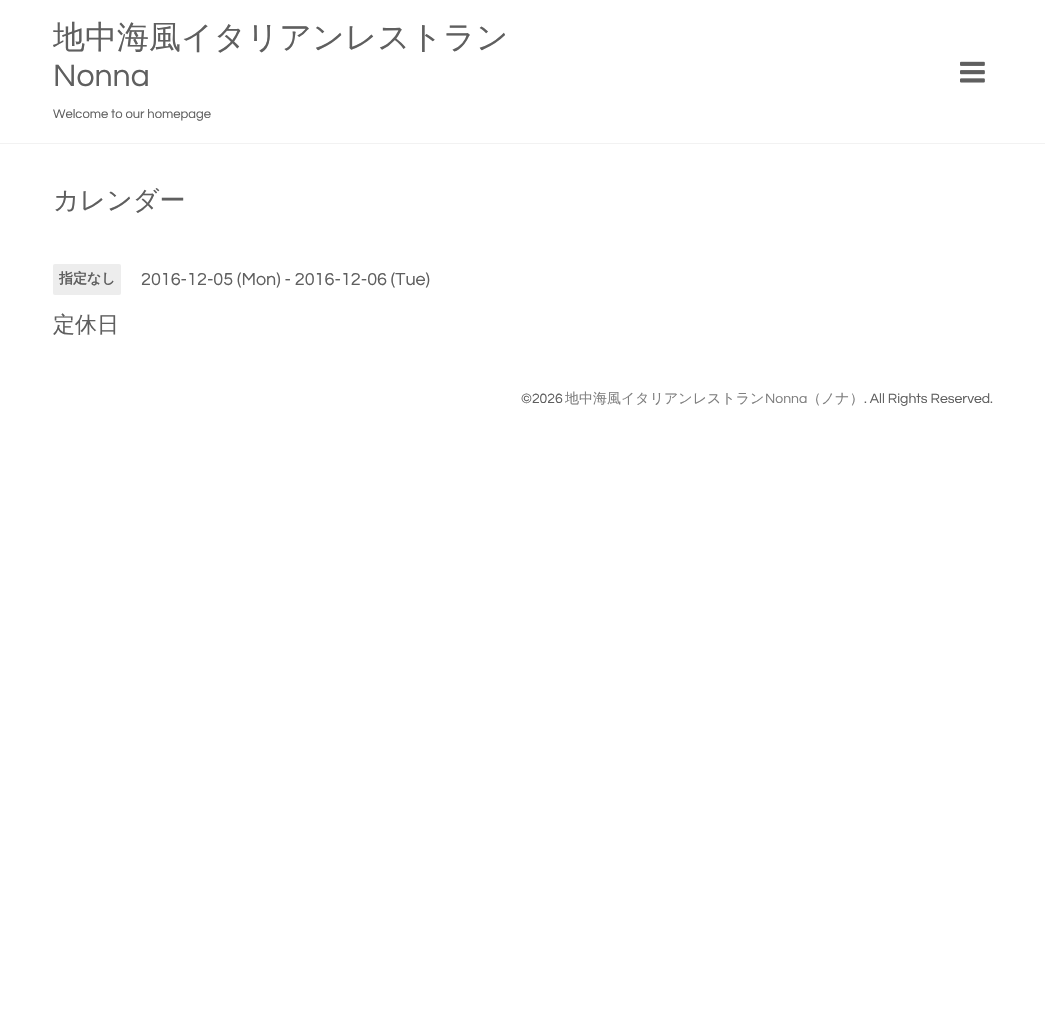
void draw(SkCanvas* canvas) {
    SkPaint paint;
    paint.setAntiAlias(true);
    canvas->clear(0xFFFFFFFF);
    paint.setColor(0xFFF2F2F2);
    canvas->drawRect(SkRect::MakeXYWH(0, 143, 1045, 1), paint);
    SkFont font1(fontMgr->matchFamilyStyle("WenQuanYi Zen Hei", SkFontStyle(500, SkFontStyle::kNormal_Width, SkFontStyle::kUpright_Slant)), 32);
    font1.setSubpixel(true);
    paint.setColor(0xFF5F5F5F);
    canvas->drawString("地中海風イタリアンレストラン", 53, 48, font1, paint);
    SkFont font2(fontMgr->matchFamilyStyle("Questrial", SkFontStyle::Normal()), 32);
    font2.setSubpixel(true);
    canvas->drawString("Nonna", 53, 86, font2, paint);
    SkFont font3(fontMgr->matchFamilyStyle("Questrial", SkFontStyle::Normal()), 13);
    font3.setSubpixel(true);
    canvas->drawString("Welcome to our homepage", 53, 118, font3, paint);
    canvas->drawImageRect(SkImages::DeferredFromEncodedData(SkData::MakeFromFileName("img1.png")), SkRect::MakeXYWH(960, 61, 25, 22), SkSamplingOptions());
    SkFont font4(fontMgr->matchFamilyStyle("WenQuanYi Zen Hei", SkFontStyle(500, SkFontStyle::kNormal_Width, SkFontStyle::kUpright_Slant)), 26);
    font4.setSubpixel(true);
    canvas->drawString("カレンダー", 53, 209, font4, paint);
    paint.setColor(0xFFEDEDED);
    canvas->drawRoundRect(SkRect::MakeXYWH(53, 264, 68, 31), 2, 2, paint);
    SkFont font5(fontMgr->matchFamilyStyle("WenQuanYi Zen Hei", SkFontStyle::Bold()), 14);
    font5.setSubpixel(true);
    paint.setColor(0xFF5F5F5F);
    canvas->drawString("指定なし", 59, 283, font5, paint);
    SkFont font6(fontMgr->matchFamilyStyle("Questrial", SkFontStyle::Normal()), 18);
    font6.setSubpixel(true);
    canvas->drawString("2016-12-05 (Mon) - 2016-12-06 (Tue)", 141, 285, font6, paint);
    SkFont font7(fontMgr->matchFamilyStyle("WenQuanYi Zen Hei", SkFontStyle(500, SkFontStyle::kNormal_Width, SkFontStyle::kUpright_Slant)), 22);
    font7.setSubpixel(true);
    canvas->drawString("定休日", 53, 332, font7, paint);
    SkFont font8(fontMgr->matchFamilyStyle("Questrial", SkFontStyle::Normal()), 14);
    font8.setSubpixel(true);
    canvas->drawString("©2026", 521, 403, font8, paint);
    SkFont font9(fontMgr->matchFamilyStyle("WenQuanYi Zen Hei", SkFontStyle(500, SkFontStyle::kNormal_Width, SkFontStyle::kUpright_Slant)), 14);
    font9.setSubpixel(true);
    paint.setColor(0xFF7F7F7F);
    canvas->drawString("地中海風イタリアンレストラン", 565, 403, font9, paint);
    canvas->drawString("Nonna", 765, 403, font8, paint);
    canvas->drawString("（ノナ）", 807, 403, font9, paint);
    paint.setColor(0xFF5F5F5F);
    canvas->drawString(". All Rights Reserved.", 864, 403, font8, paint);
}
